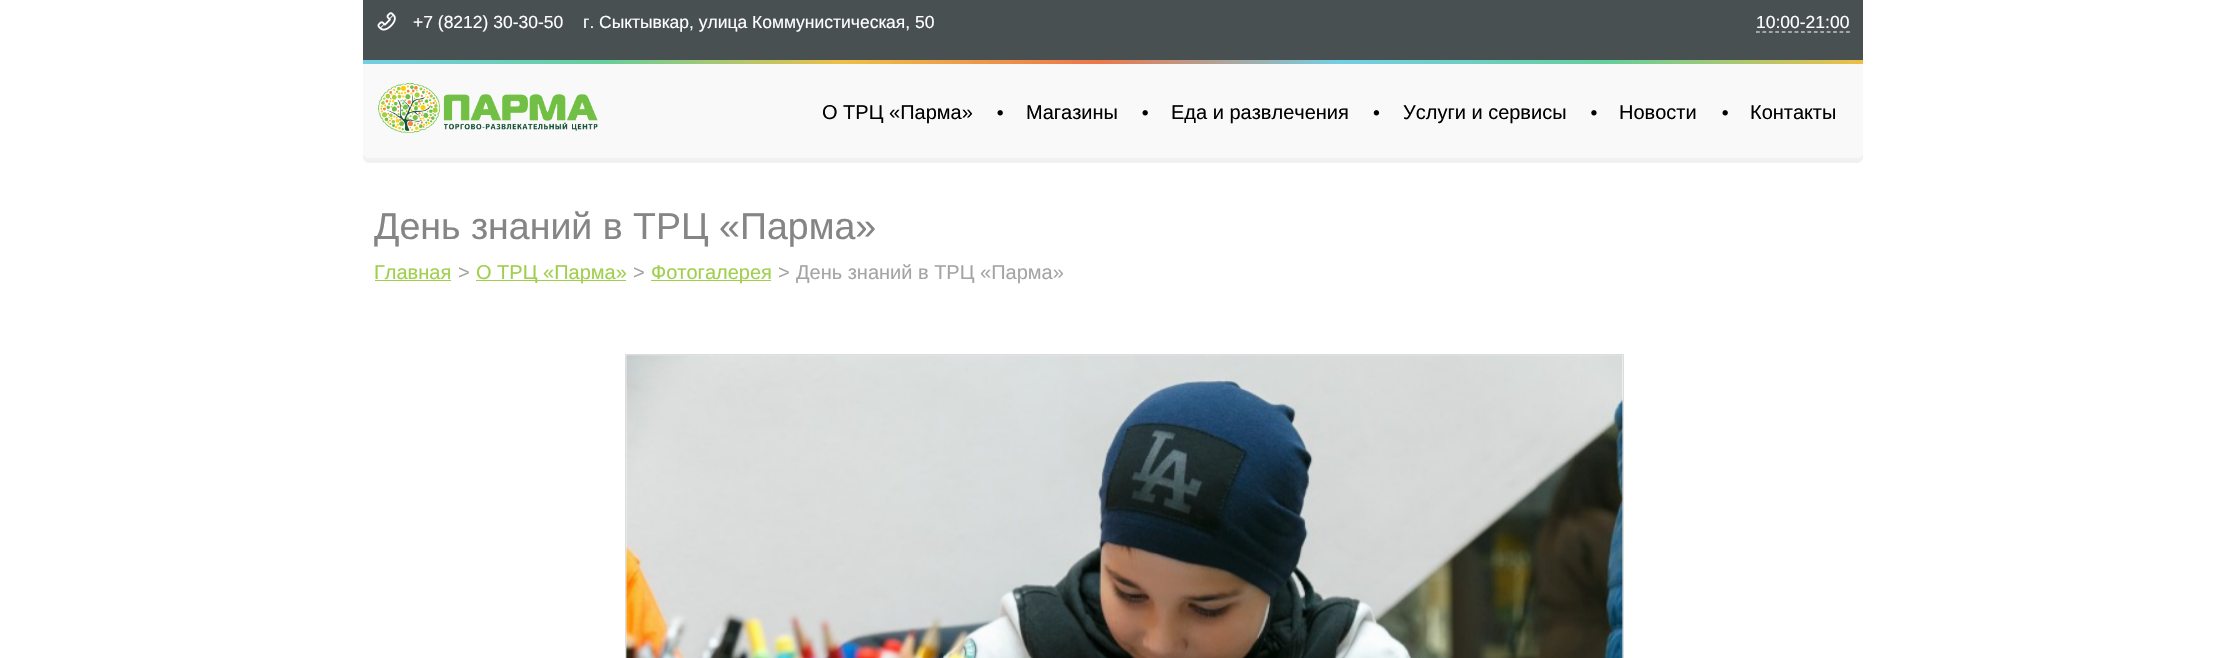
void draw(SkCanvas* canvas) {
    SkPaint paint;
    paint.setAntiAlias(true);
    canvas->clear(0xFFFFFFFF);
    paint.setColor(0xFF495052);
    canvas->drawRect(SkRect::MakeXYWH(363, 0, 1500, 60), paint);
    canvas->drawImageRect(SkImages::DeferredFromEncodedData(SkData::MakeFromFileName("img1.png")), SkRect::MakeXYWH(377, 12, 19, 19), SkSamplingOptions());
    SkFont font1(fontMgr->matchFamilyStyle("Liberation Sans", SkFontStyle::Normal()), 17.5f);
    font1.setSubpixel(true);
    paint.setColor(0xFFFFFFFF);
    canvas->drawString("+7 (8212) 30-30-50", 413, 28, font1, paint);
    canvas->drawString("г. Сыктывкар, улица Коммунистическая, 50", 583, 28, font1, paint);
    canvas->drawString("10:00-21:00", 1756, 28, font1, paint);
    paint.setStyle(SkPaint::kStroke_Style);
    paint.setStrokeWidth(1.2f);
    paint.setPathEffect(SkDashPathEffect::Make({{3.75f, 2.68f}}, 0));
    canvas->drawPath(SkPathBuilder().moveTo(1756, 32).lineTo(1850, 32).detach(), paint);
    paint.setPathEffect(nullptr);
    paint.setStyle(SkPaint::kFill_Style);
    {
        const SkColor colors[] = {0xFF74CEE4, 0xFF66CE9C, 0xFFEDBF47, 0xFFEC774B, 0xFF74CEE4, 0xFF66CE9C, 0xFFEDBF47};
        const float stops[] = {0, 0.16f, 0.32f, 0.49f, 0.65f, 0.83f, 1};
        const SkPoint ends[] = {{363, 62}, {1863, 62}};
        paint.setShader(SkGradientShader::MakeLinear(ends, colors, stops, 7, SkTileMode::kClamp));
        paint.setAlpha(255);
    }
    canvas->drawRect(SkRect::MakeXYWH(363, 60, 1500, 4), paint);
    paint.setShader(nullptr);
    paint.setColor(0xFFF1F1F1);
    canvas->drawPath(SkPathBuilder().moveTo(363, 154).lineTo(363, 157).cubicTo(363, 160, 366, 163, 369, 163).lineTo(1857, 163).cubicTo(1860, 163, 1863, 160, 1863, 157).lineTo(1863, 69).lineTo(1862, 69).lineTo(1862, 151).cubicTo(1862, 155, 1860, 158, 1856, 158).lineTo(369, 158).cubicTo(366, 158, 364, 156, 363, 154).close().detach(), paint);
    paint.setColor(0xFFF9F9F9);
    canvas->drawPath(SkPathBuilder().moveTo(363, 64).lineTo(1863, 64).lineTo(1863, 152).cubicTo(1863, 155.5f, 1860.5f, 158, 1857, 158).lineTo(369, 158).cubicTo(365.5f, 158, 363, 155.5f, 363, 152).close().detach(), paint);
    canvas->drawImageRect(SkImages::DeferredFromEncodedData(SkData::MakeFromFileName("img2.png")), SkRect::MakeXYWH(378, 83, 220, 50), SkSamplingOptions());
    SkFont font2(fontMgr->matchFamilyStyle("Liberation Sans", SkFontStyle::Normal()), 20);
    font2.setSubpixel(true);
    paint.setColor(0xFF000000);
    canvas->drawString("О ТРЦ «Парма»", 822, 119, font2, paint);
    canvas->drawImageRect(SkImages::DeferredFromEncodedData(SkData::MakeFromFileName("img3.png")), SkRect::MakeXYWH(997, 110, 6, 6), SkSamplingOptions());
    canvas->drawString("Магазины", 1026, 119, font2, paint);
    canvas->drawImageRect(SkImages::DeferredFromEncodedData(SkData::MakeFromFileName("img3.png")), SkRect::MakeXYWH(1142, 110, 6, 6), SkSamplingOptions());
    canvas->drawString("Еда и развлечения", 1171, 119, font2, paint);
    canvas->drawImageRect(SkImages::DeferredFromEncodedData(SkData::MakeFromFileName("img4.png")), SkRect::MakeXYWH(1373, 110, 7, 6), SkSamplingOptions());
    canvas->drawString("Услуги и сервисы", 1403, 119, font2, paint);
    canvas->drawImageRect(SkImages::DeferredFromEncodedData(SkData::MakeFromFileName("img5.png")), SkRect::MakeXYWH(1591, 110, 6, 6), SkSamplingOptions());
    canvas->drawString("Новости", 1619, 119, font2, paint);
    canvas->drawImageRect(SkImages::DeferredFromEncodedData(SkData::MakeFromFileName("img3.png")), SkRect::MakeXYWH(1722, 110, 6, 6), SkSamplingOptions());
    canvas->drawString("Контакты", 1750, 119, font2, paint);
    SkFont font3(fontMgr->matchFamilyStyle("Liberation Sans", SkFontStyle::Normal()), 37.5f);
    font3.setSubpixel(true);
    paint.setColor(0xFF868585);
    canvas->drawString("День знаний в ТРЦ «Парма»", 374, 239, font3, paint);
    paint.setColor(0xFFA0CF4D);
    canvas->drawString("Главная", 374, 279, font2, paint);
    canvas->drawRect(SkRect::MakeXYWH(375, 280, 76, 1), paint);
    paint.setColor(0xFFA4A4A4);
    canvas->drawString(">", 458, 279, font2, paint);
    paint.setColor(0xFFA0CF4D);
    canvas->drawRect(SkRect::MakeXYWH(476, 280, 150, 1), paint);
    canvas->drawString("О ТРЦ «Парма»", 476, 279, font2, paint);
    paint.setColor(0xFFA4A4A4);
    canvas->drawString(">", 633, 279, font2, paint);
    paint.setColor(0xFFA0CF4D);
    canvas->drawRect(SkRect::MakeXYWH(651, 280, 120, 1), paint);
    canvas->drawString("Фотогалерея", 651, 279, font2, paint);
    paint.setColor(0xFFA4A4A4);
    canvas->drawString(">", 778, 279, font2, paint);
    canvas->drawString("День знаний в ТРЦ «Парма»", 796, 279, font2, paint);
    paint.setStyle(SkPaint::kStroke_Style);
    paint.setStrokeWidth(1);
    paint.setColor(0xFFDDDDDD);
    canvas->drawRect(SkRect::MakeXYWH(625.5f, 354.5f, 998, 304), paint);
    canvas->drawImageRect(SkImages::DeferredFromEncodedData(SkData::MakeFromFileName("img6.png")), SkRect::MakeXYWH(626, 355, 997, 303), SkSamplingOptions());
}
